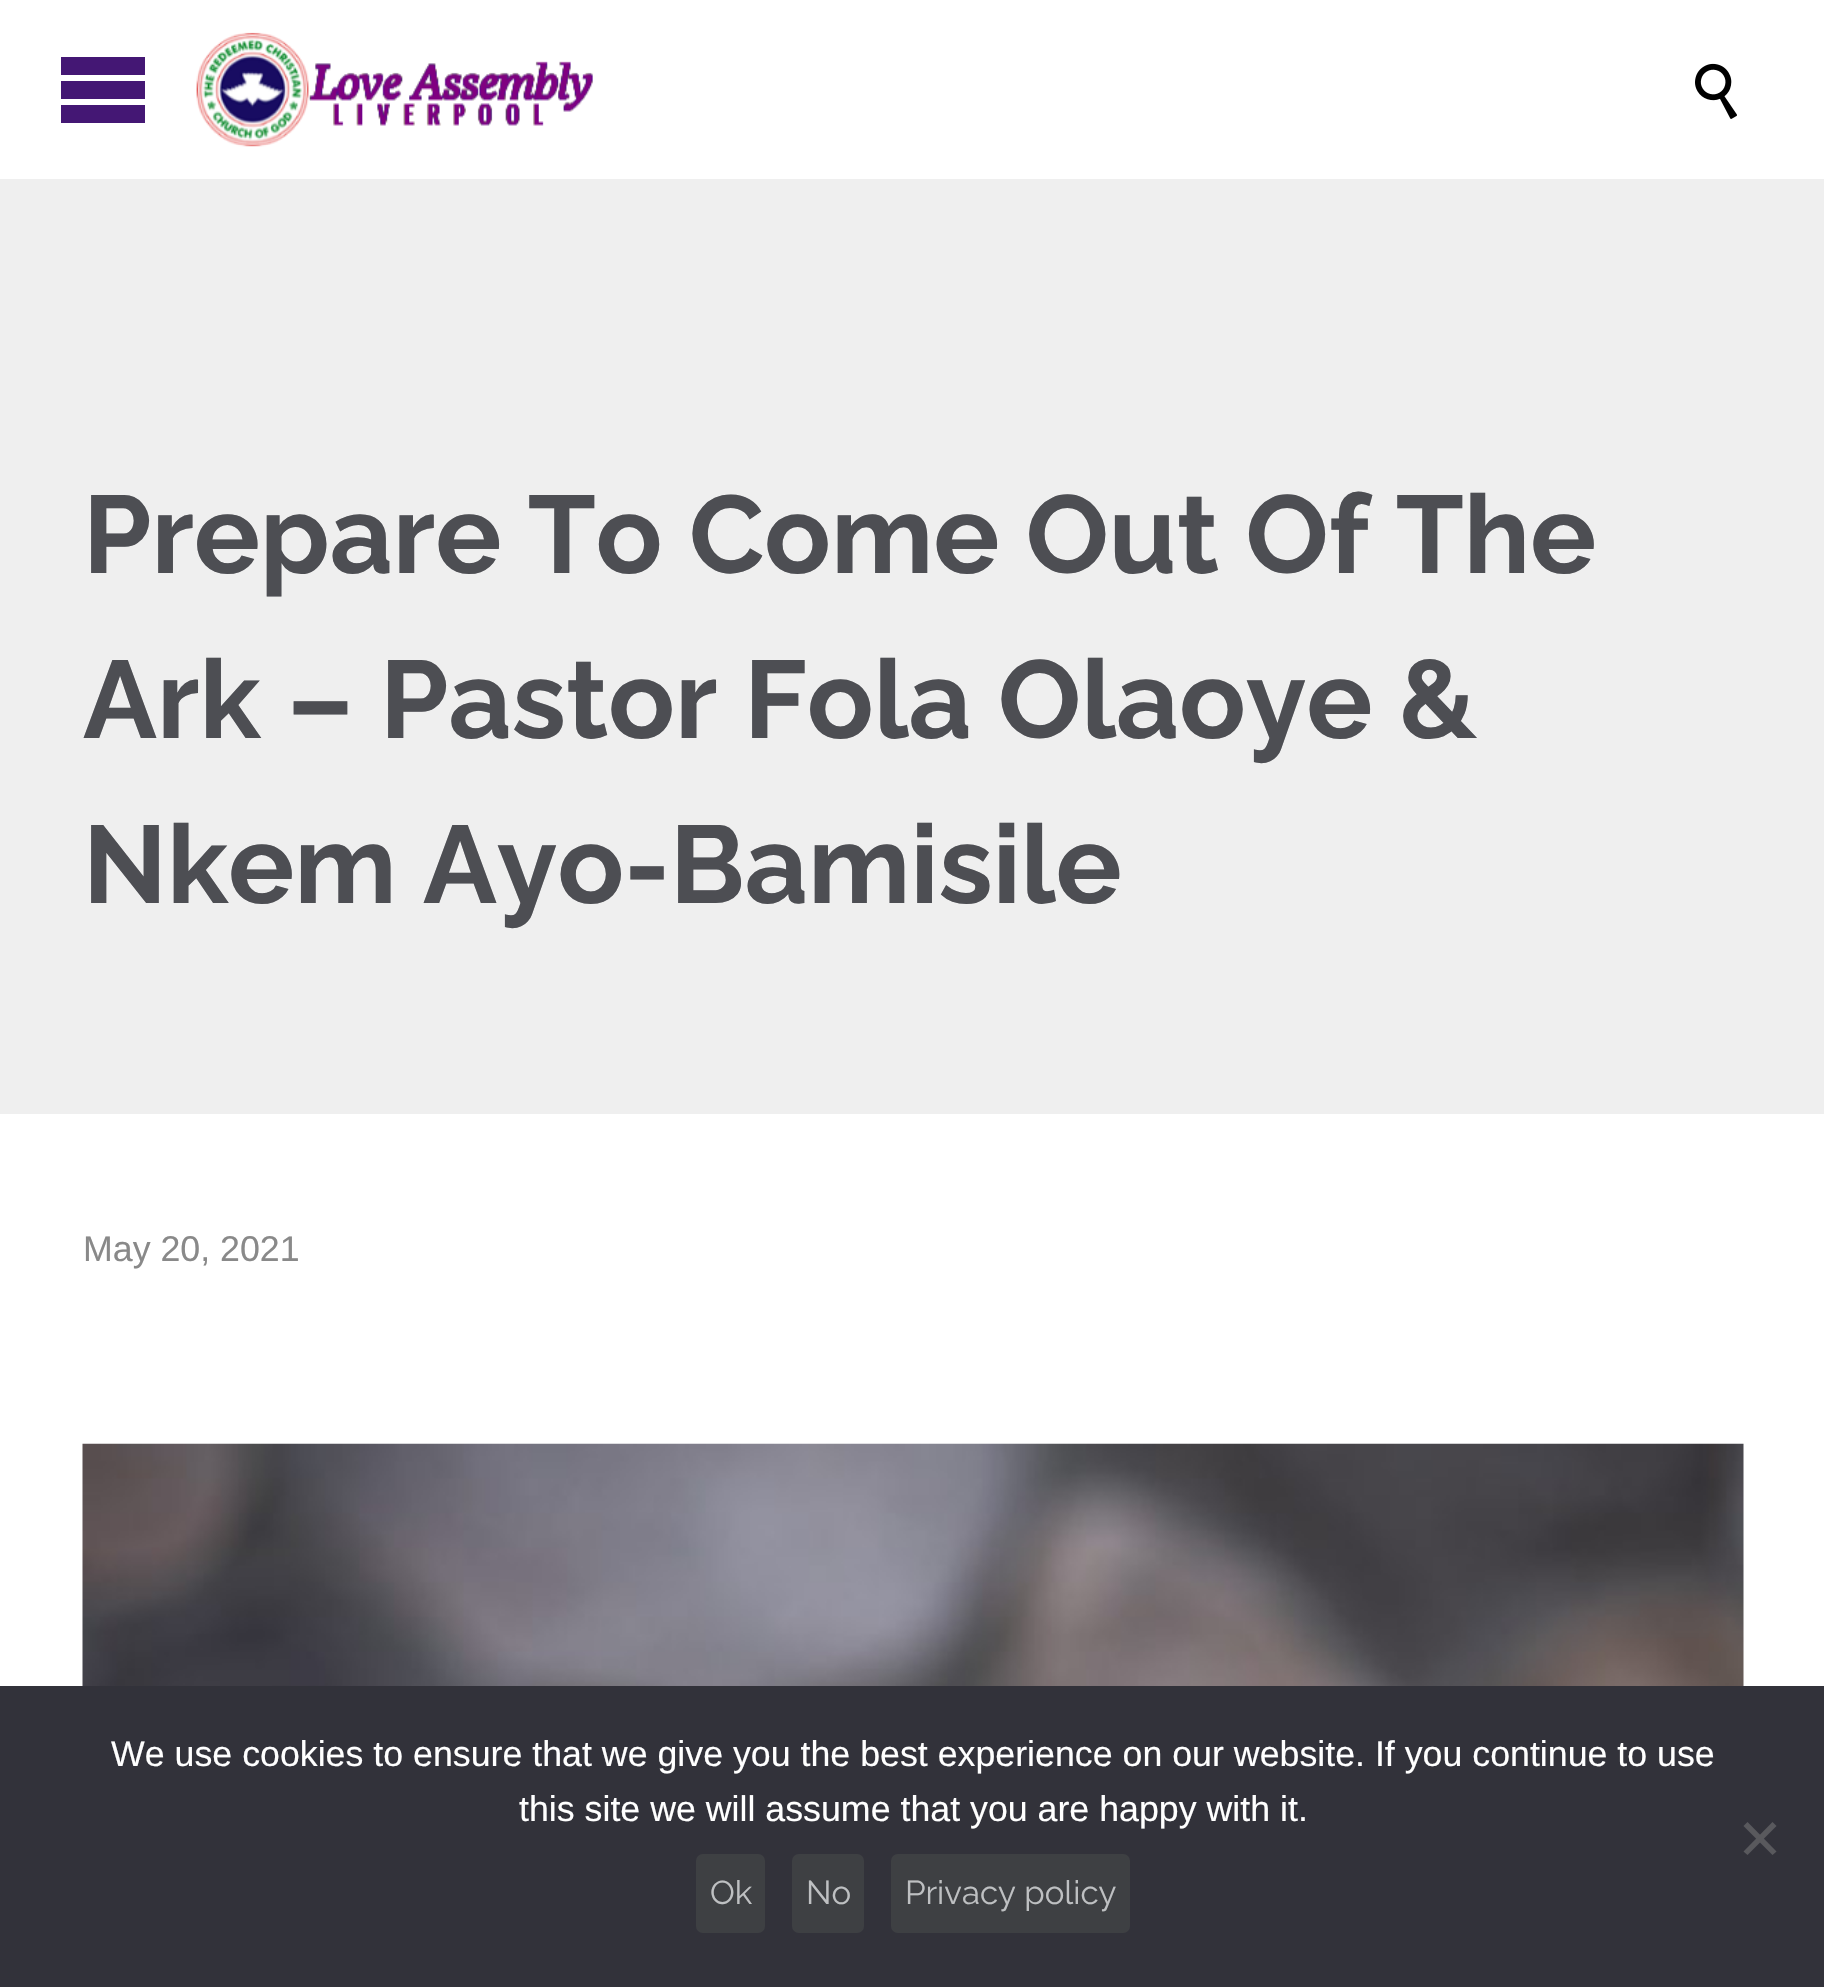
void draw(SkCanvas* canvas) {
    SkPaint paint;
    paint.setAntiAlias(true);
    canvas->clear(0xFFEFEFEF);
    paint.setColor(0xFFFFFFFF);
    canvas->drawRect(SkRect::MakeXYWH(0, 0, 1824, 179), paint);
    paint.setColor(0xFF441774);
    canvas->drawPath(SkPathBuilder().moveTo(61, 57).lineTo(145, 57).lineTo(145, 75).lineTo(61, 75).close().moveTo(61, 81).lineTo(145, 81).lineTo(145, 99).lineTo(61, 99).close().moveTo(61, 105).lineTo(145, 105).lineTo(145, 123).lineTo(61, 123).close().detach(), paint);
    canvas->drawImageRect(SkImages::DeferredFromEncodedData(SkData::MakeFromFileName("img1.png")), SkRect::MakeXYWH(196, 32, 397, 115), SkSamplingOptions());
    canvas->drawImageRect(SkImages::DeferredFromEncodedData(SkData::MakeFromFileName("img2.png")), SkRect::MakeXYWH(1695, 63, 42, 56), SkSamplingOptions());
    SkFont font1(fontMgr->matchFamilyStyle("Raleway", SkFontStyle::Bold()), 110);
    font1.setSubpixel(true);
    paint.setColor(0xFF4D4E53);
    canvas->drawString("Prepare To Come Out Of The", 83, 573, font1, paint);
    canvas->drawString("Ark – Pastor Fola Olaoye &", 83, 738, font1, paint);
    canvas->drawString("Nkem Ayo-Bamisile", 83, 903, font1, paint);
    paint.setColor(0xFFFFFFFF);
    canvas->drawRect(SkRect::MakeXYWH(0, 1114, 1824, 572), paint);
    SkFont font2(fontMgr->matchFamilyStyle("Liberation Sans", SkFontStyle::Normal()), 35.75f);
    font2.setSubpixel(true);
    paint.setColor(0xFF898989);
    canvas->drawString("May 20, 2021", 83, 1261, font2, paint);
    canvas->drawImageRect(SkImages::DeferredFromEncodedData(SkData::MakeFromFileName("img3.png")), SkRect::MakeXYWH(82, 1443, 1662, 243), SkSamplingOptions());
    paint.setColor(0xFF32323A);
    canvas->drawRect(SkRect::MakeXYWH(0, 1686, 1824, 301), paint);
    paint.setColor(0xFFFFFFFF);
    canvas->drawString("We use cookies to ensure that we give you the best experience on our website. If you continue to use", 111, 1766, font2, paint);
    canvas->drawString("this site we will assume that you are happy with it.", 519, 1821, font2, paint);
    paint.setColor(0xFF59595D);
    canvas->drawPath(SkPathBuilder().moveTo(1772.5f, 1822).lineTo(1776.5f, 1826).lineTo(1747.5f, 1855).lineTo(1743.5f, 1851.5f).close().detach(), paint);
    canvas->drawPath(SkPathBuilder().moveTo(1743.5f, 1826).lineTo(1747.5f, 1822).lineTo(1776.5f, 1851.5f).lineTo(1772.5f, 1855).close().detach(), paint);
    paint.setColor(0xFF3E4043);
    canvas->drawRoundRect(SkRect::MakeXYWH(696, 1854, 69, 79), 7, 7, paint);
    SkFont font3(fontMgr->matchFamilyStyle("Raleway", SkFontStyle::Normal()), 33);
    font3.setSubpixel(true);
    paint.setColor(0xFFBEC0C2);
    canvas->drawString("Ok", 710, 1904, font3, paint);
    paint.setColor(0xFF3E4043);
    canvas->drawRoundRect(SkRect::MakeXYWH(792, 1854, 72, 79), 7, 7, paint);
    paint.setColor(0xFFBEC0C2);
    canvas->drawString("No", 806, 1904, font3, paint);
    paint.setColor(0xFF3E4043);
    canvas->drawRoundRect(SkRect::MakeXYWH(891, 1854, 239, 79), 7, 7, paint);
    paint.setColor(0xFFBEC0C2);
    canvas->drawString("Privacy policy", 905, 1904, font3, paint);
}
